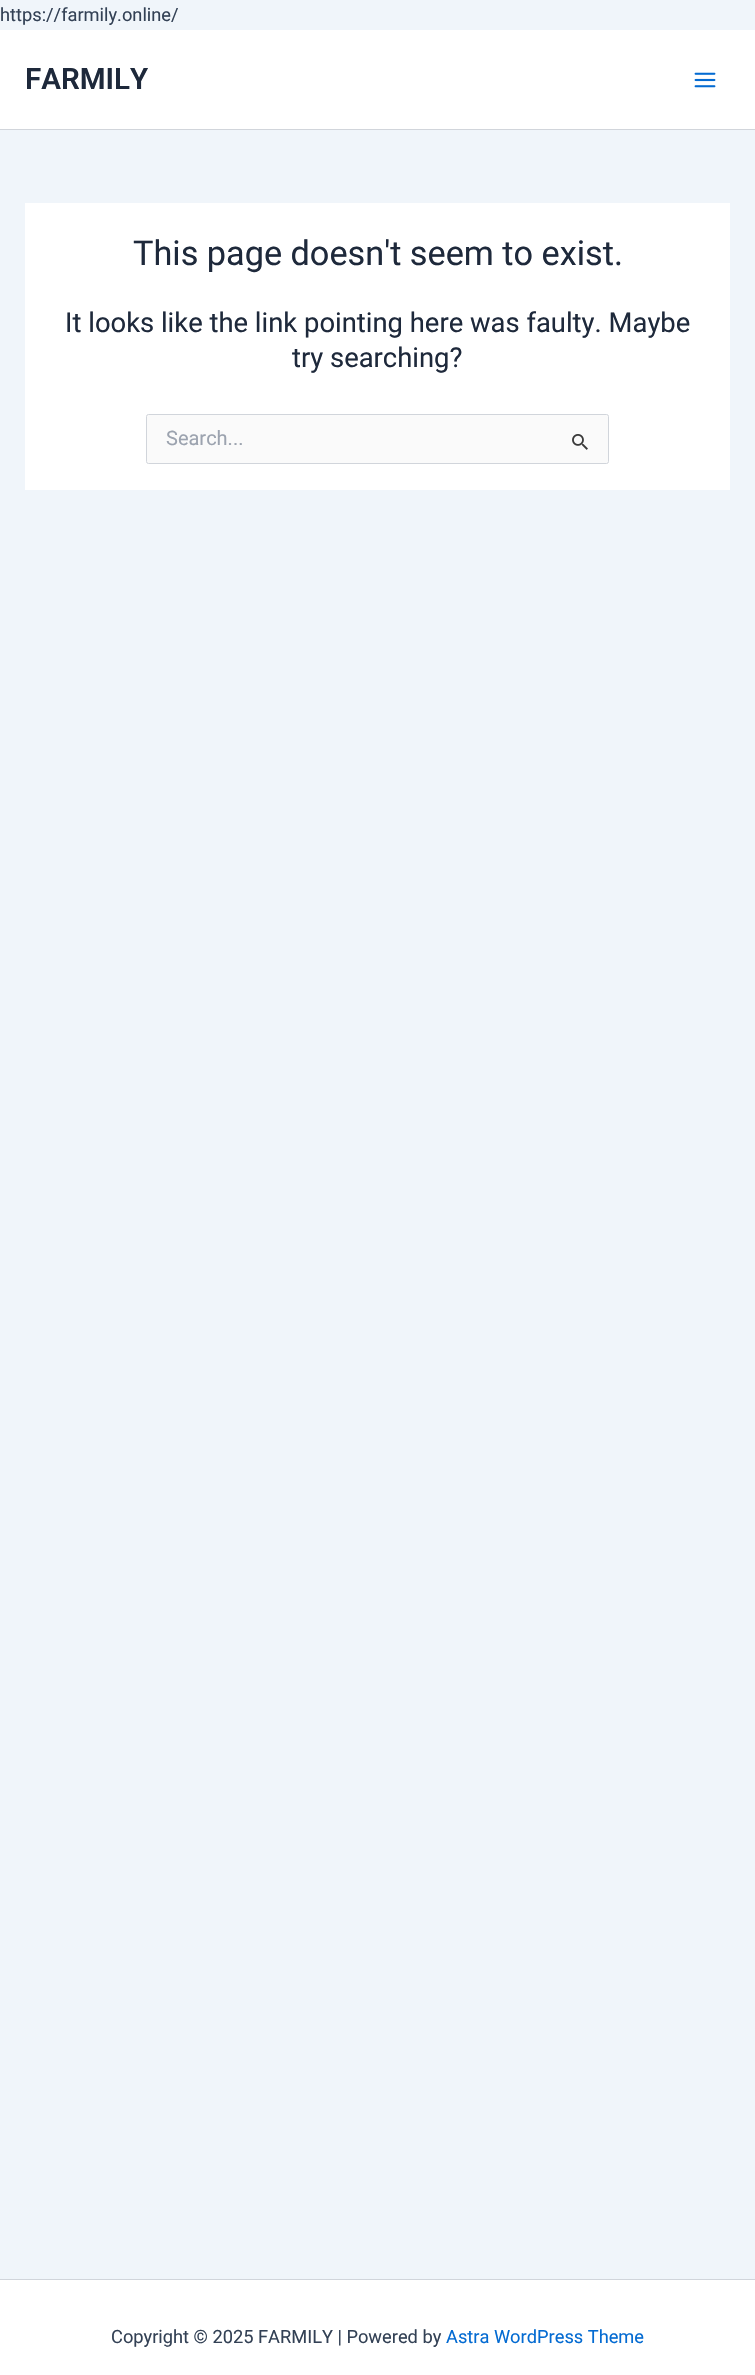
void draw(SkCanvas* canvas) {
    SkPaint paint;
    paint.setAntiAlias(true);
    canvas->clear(0xFFF0F5FA);
    SkFont font1(fontMgr->matchFamilyStyle("Roboto", SkFontStyle::Normal()), 18.25f);
    font1.setSubpixel(true);
    paint.setColor(0xFF334155);
    canvas->drawString("https://farmily.online/", 0, 21, font1, paint);
    paint.setColor(0xFFFFFFFF);
    canvas->drawRect(SkRect::MakeXYWH(0, 30, 755, 99), paint);
    paint.setColor(0xFFD1D5DB);
    canvas->drawRect(SkRect::MakeXYWH(0, 129, 755, 1), paint);
    SkFont font2(fontMgr->matchFamilyStyle("Roboto", SkFontStyle(600, SkFontStyle::kNormal_Width, SkFontStyle::kUpright_Slant)), 29.5f);
    font2.setSubpixel(true);
    paint.setColor(0xFF1E293B);
    canvas->drawString("FARMILY", 25, 89, font2, paint);
    canvas->drawImageRect(SkImages::DeferredFromEncodedData(SkData::MakeFromFileName("img1.png")), SkRect::MakeXYWH(694, 72, 22, 16), SkSamplingOptions());
    paint.setColor(0xFFFFFFFF);
    canvas->drawRect(SkRect::MakeXYWH(25, 203, 705, 287), paint);
    SkFont font3(fontMgr->matchFamilyStyle("Roboto", SkFontStyle::Normal()), 34.25f);
    font3.setSubpixel(true);
    paint.setColor(0xFF1E293B);
    canvas->drawString("This page doesn't seem to exist.", 133, 265, font3, paint);
    SkFont font4(fontMgr->matchFamilyStyle("Roboto", SkFontStyle::Normal()), 27.4f);
    font4.setSubpixel(true);
    canvas->drawString("It looks like the link pointing here was faulty. Maybe", 65, 332, font4, paint);
    canvas->drawString("try searching?", 292, 367, font4, paint);
    paint.setColor(0xFFFAFAFA);
    canvas->drawRoundRect(SkRect::MakeXYWH(146.5f, 414.5f, 462, 49), 2, 2, paint);
    paint.setStyle(SkPaint::kStroke_Style);
    paint.setStrokeWidth(1);
    paint.setColor(0xFFD1D5DB);
    canvas->drawRoundRect(SkRect::MakeXYWH(146.5f, 414.5f, 462, 49), 2, 2, paint);
    SkFont font5(fontMgr->matchFamilyStyle("Roboto", SkFontStyle::Normal()), 20);
    font5.setSubpixel(true);
    paint.setStyle(SkPaint::kFill_Style);
    paint.setColor(0xFF9CA3AF);
    canvas->drawString("Search...", 166, 445, font5, paint);
    canvas->drawImageRect(SkImages::DeferredFromEncodedData(SkData::MakeFromFileName("img2.png")), SkRect::MakeXYWH(572, 434, 16, 16), SkSamplingOptions());
    paint.setColor(0xFFFFFFFF);
    canvas->drawRect(SkRect::MakeXYWH(0, 2280, 755, 95), paint);
    paint.setColor(0xFFD1D5DB);
    canvas->drawRect(SkRect::MakeXYWH(0, 2279, 755, 1), paint);
    paint.setColor(0xFF334155);
    canvas->drawString("Copyright © 2025 FARMILY | Powered by", 111, 2343, font1, paint);
    paint.setColor(0xFF046BD2);
    canvas->drawString("Astra WordPress Theme", 446, 2343, font1, paint);
}
